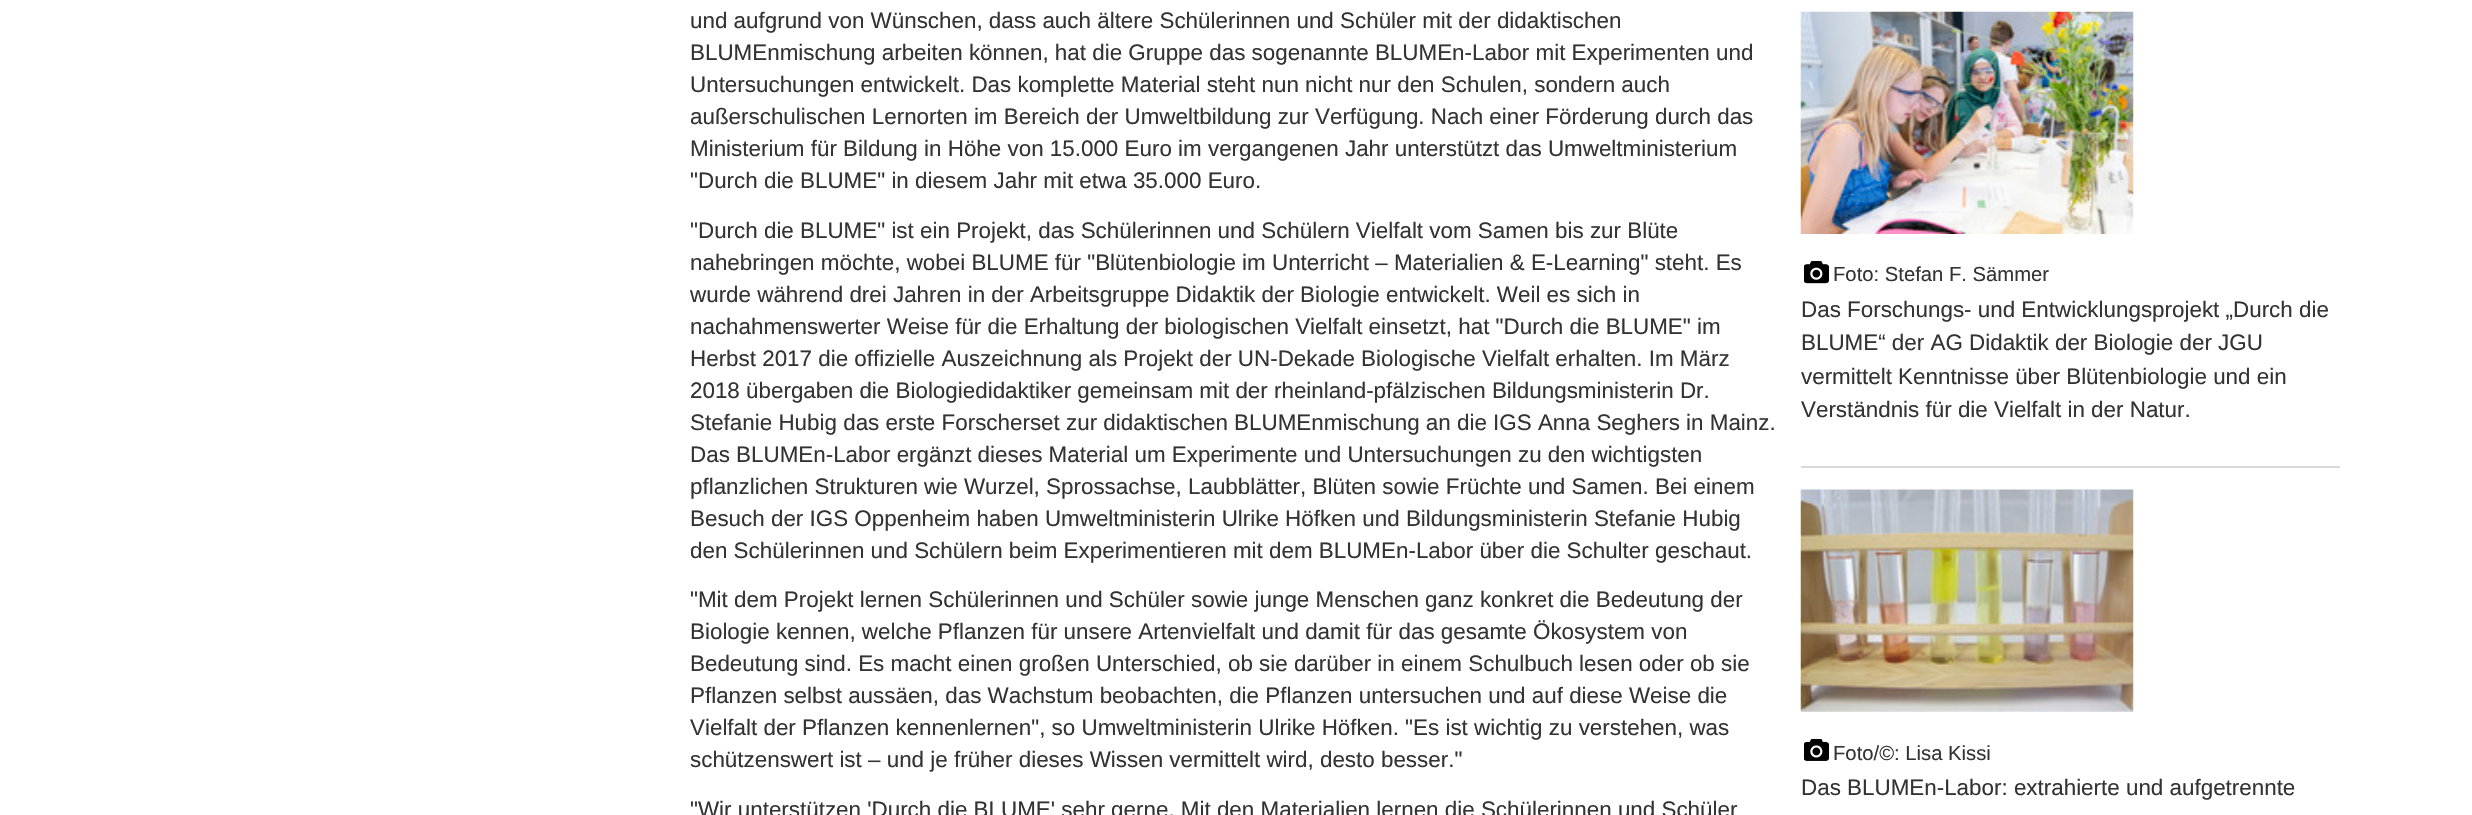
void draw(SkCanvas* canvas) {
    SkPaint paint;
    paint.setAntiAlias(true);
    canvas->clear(0xFFFFFFFF);
    SkFont font1(fontMgr->matchFamilyStyle("Liberation Sans", SkFontStyle::Normal()), 22.4f);
    font1.setSubpixel(true);
    paint.setColor(0xFF333333);
    canvas->drawString("und aufgrund von Wünschen, dass auch ältere Schülerinnen und Schüler mit der didaktischen", 690, 28, font1, paint);
    canvas->drawString("BLUMEnmischung arbeiten können, hat die Gruppe das sogenannte BLUMEn-Labor mit Experimenten und", 690, 60, font1, paint);
    canvas->drawString("Untersuchungen entwickelt. Das komplette Material steht nun nicht nur den Schulen, sondern auch", 690, 92, font1, paint);
    canvas->drawString("außerschulischen Lernorten im Bereich der Umweltbildung zur Verfügung. Nach einer Förderung durch das", 690, 124, font1, paint);
    canvas->drawString("Ministerium für Bildung in Höhe von 15.000 Euro im vergangenen Jahr unterstützt das Umweltministerium", 690, 156, font1, paint);
    canvas->drawString("\"Durch die BLUME\" in diesem Jahr mit etwa 35.000 Euro.", 690, 188, font1, paint);
    canvas->drawString("\"Durch die BLUME\" ist ein Projekt, das Schülerinnen und Schülern Vielfalt vom Samen bis zur Blüte", 690, 238, font1, paint);
    canvas->drawString("nahebringen möchte, wobei BLUME für \"Blütenbiologie im Unterricht – Materialien & E-Learning\" steht. Es", 690, 270, font1, paint);
    canvas->drawString("wurde während drei Jahren in der Arbeitsgruppe Didaktik der Biologie entwickelt. Weil es sich in", 690, 302, font1, paint);
    canvas->drawString("nachahmenswerter Weise für die Erhaltung der biologischen Vielfalt einsetzt, hat \"Durch die BLUME\" im", 690, 334, font1, paint);
    canvas->drawString("Herbst 2017 die offizielle Auszeichnung als Projekt der UN-Dekade Biologische Vielfalt erhalten. Im März", 690, 366, font1, paint);
    canvas->drawString("2018 übergaben die Biologiedidaktiker gemeinsam mit der rheinland-pfälzischen Bildungsministerin Dr.", 690, 398, font1, paint);
    canvas->drawString("Stefanie Hubig das erste Forscherset zur didaktischen BLUMEnmischung an die IGS Anna Seghers in Mainz.", 690, 430, font1, paint);
    canvas->drawString("Das BLUMEn-Labor ergänzt dieses Material um Experimente und Untersuchungen zu den wichtigsten", 690, 462, font1, paint);
    canvas->drawString("pflanzlichen Strukturen wie Wurzel, Sprossachse, Laubblätter, Blüten sowie Früchte und Samen. Bei einem", 690, 494, font1, paint);
    canvas->drawString("Besuch der IGS Oppenheim haben Umweltministerin Ulrike Höfken und Bildungsministerin Stefanie Hubig", 690, 526, font1, paint);
    canvas->drawString("den Schülerinnen und Schülern beim Experimentieren mit dem BLUMEn-Labor über die Schulter geschaut.", 690, 558, font1, paint);
    canvas->drawString("\"Mit dem Projekt lernen Schülerinnen und Schüler sowie junge Menschen ganz konkret die Bedeutung der", 690, 607, font1, paint);
    canvas->drawString("Biologie kennen, welche Pflanzen für unsere Artenvielfalt und damit für das gesamte Ökosystem von", 690, 639, font1, paint);
    canvas->drawString("Bedeutung sind. Es macht einen großen Unterschied, ob sie darüber in einem Schulbuch lesen oder ob sie", 690, 671, font1, paint);
    canvas->drawString("Pflanzen selbst aussäen, das Wachstum beobachten, die Pflanzen untersuchen und auf diese Weise die", 690, 703, font1, paint);
    canvas->drawString("Vielfalt der Pflanzen kennenlernen\", so Umweltministerin Ulrike Höfken. \"Es ist wichtig zu verstehen, was", 690, 735, font1, paint);
    canvas->drawString("schützenswert ist – und je früher dieses Wissen vermittelt wird, desto besser.\"", 690, 767, font1, paint);
    canvas->drawString("\"Wir unterstützen 'Durch die BLUME' sehr gerne. Mit den Materialien lernen die Schülerinnen und Schüler", 690, 817, font1, paint);
    canvas->drawImageRect(SkImages::DeferredFromEncodedData(SkData::MakeFromFileName("img1.png")), SkRect::MakeXYWH(1800, 11, 334, 223), SkSamplingOptions());
    paint.setColor(0xFFDADADA);
    canvas->drawRect(SkRect::MakeXYWH(1801, 466, 539, 2), paint);
    canvas->drawImageRect(SkImages::DeferredFromEncodedData(SkData::MakeFromFileName("img2.png")), SkRect::MakeXYWH(1804, 261, 25, 23), SkSamplingOptions());
    SkFont font2(fontMgr->matchFamilyStyle("Liberation Sans", SkFontStyle::Normal()), 20.25f);
    font2.setSubpixel(true);
    paint.setColor(0xFF333333);
    canvas->drawString("Foto: Stefan F. Sämmer", 1833, 281, font2, paint);
    canvas->drawString("Das Forschungs- und Entwicklungsprojekt „Durch die", 1801, 317, font1, paint);
    canvas->drawString("BLUME“ der AG Didaktik der Biologie der JGU", 1801, 350, font1, paint);
    canvas->drawString("vermittelt Kenntnisse über Blütenbiologie und ein", 1801, 384, font1, paint);
    canvas->drawString("Verständnis für die Vielfalt in der Natur.", 1801, 417, font1, paint);
    canvas->drawImageRect(SkImages::DeferredFromEncodedData(SkData::MakeFromFileName("img3.png")), SkRect::MakeXYWH(1800, 489, 334, 223), SkSamplingOptions());
    canvas->drawImageRect(SkImages::DeferredFromEncodedData(SkData::MakeFromFileName("img4.png")), SkRect::MakeXYWH(1804, 739, 25, 22), SkSamplingOptions());
    canvas->drawString("Foto/©: Lisa Kissi", 1833, 760, font2, paint);
    canvas->drawString("Das BLUMEn-Labor: extrahierte und aufgetrennte", 1801, 795, font1, paint);
}
